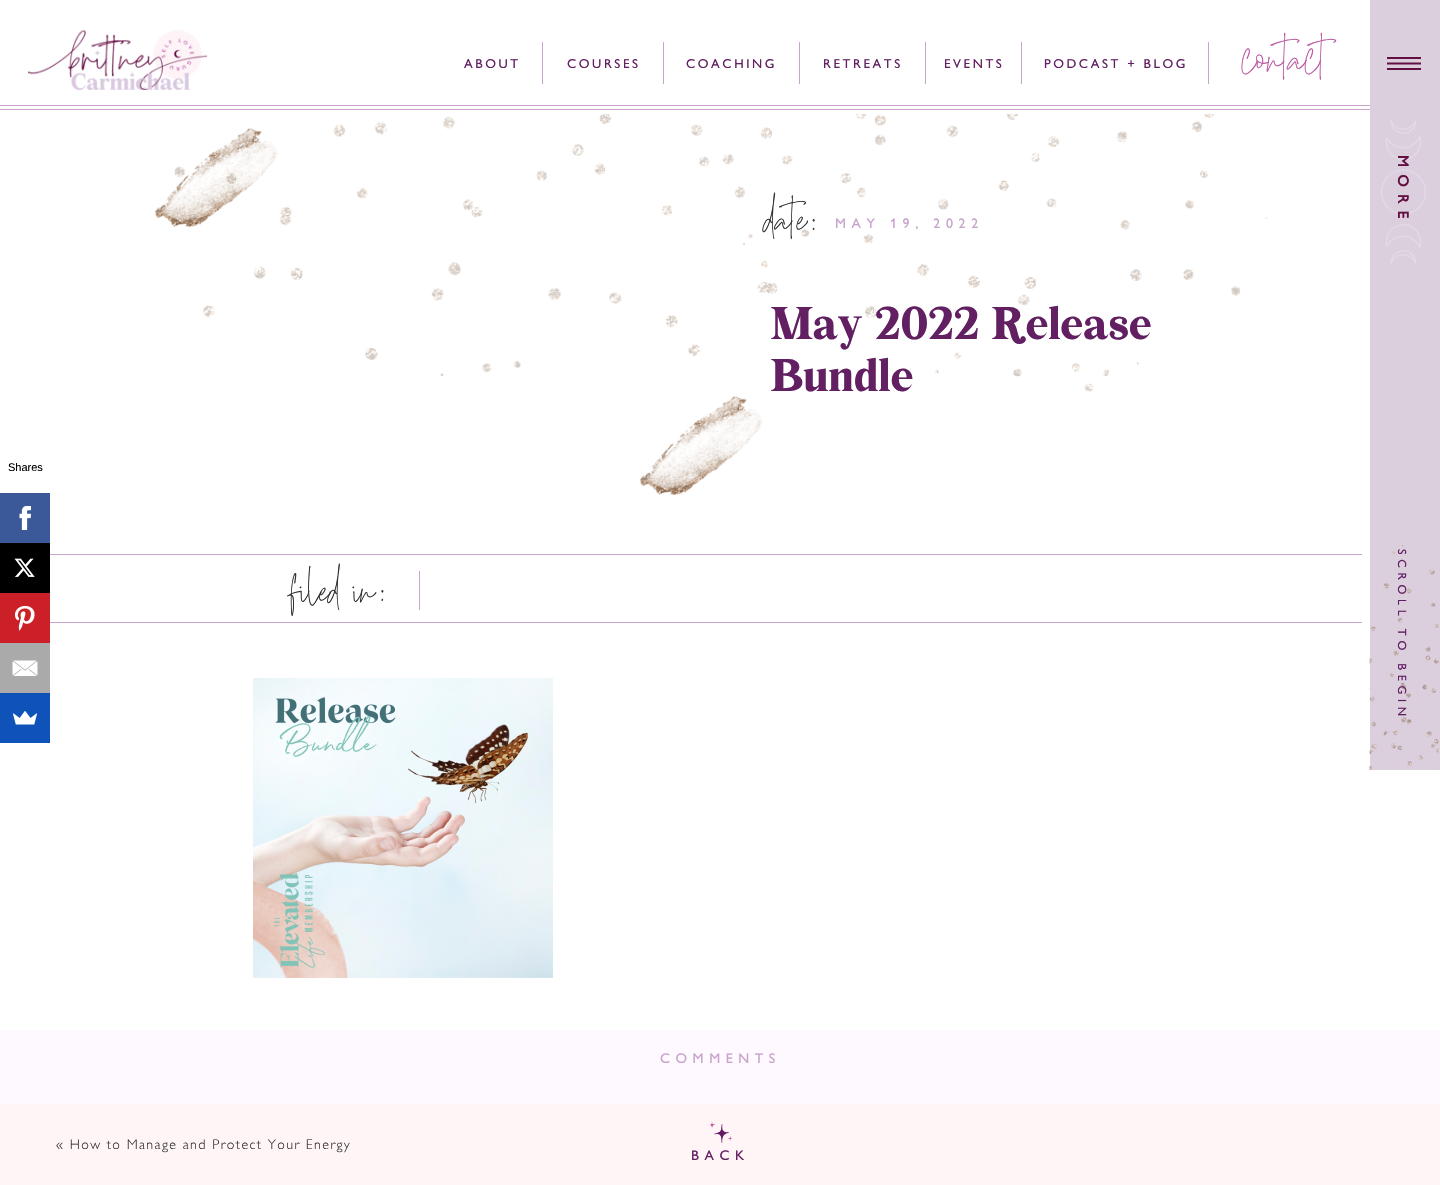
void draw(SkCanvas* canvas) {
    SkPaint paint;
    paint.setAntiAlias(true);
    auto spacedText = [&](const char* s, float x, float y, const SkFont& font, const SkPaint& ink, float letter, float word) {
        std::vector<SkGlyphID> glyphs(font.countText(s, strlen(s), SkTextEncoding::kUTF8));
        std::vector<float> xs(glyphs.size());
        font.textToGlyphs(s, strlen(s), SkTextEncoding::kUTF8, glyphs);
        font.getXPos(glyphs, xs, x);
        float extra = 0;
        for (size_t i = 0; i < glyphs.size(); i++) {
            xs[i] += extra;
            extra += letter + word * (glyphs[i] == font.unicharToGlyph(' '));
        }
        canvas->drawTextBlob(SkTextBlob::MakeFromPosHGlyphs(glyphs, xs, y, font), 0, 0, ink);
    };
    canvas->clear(0xFFFFFFFF);
    SkFont font1(fontMgr->matchFamilyStyle("Liberation Sans", SkFontStyle::Normal()), 11);
    font1.setSubpixel(true);
    paint.setColor(0xFF000000);
    canvas->drawString("Shares", 8, 471, font1, paint);
    paint.setColor(0xFF3B5998);
    canvas->drawRect(SkRect::MakeXYWH(0, 493, 50, 50), paint);
    canvas->drawImageRect(SkImages::DeferredFromEncodedData(SkData::MakeFromFileName("img1.png")), SkRect::MakeXYWH(19, 506, 12, 24), SkSamplingOptions());
    paint.setColor(0xFF000000);
    canvas->drawRect(SkRect::MakeXYWH(0, 543, 50, 50), paint);
    canvas->drawImageRect(SkImages::DeferredFromEncodedData(SkData::MakeFromFileName("img2.png")), SkRect::MakeXYWH(14, 558, 21, 19), SkSamplingOptions());
    paint.setColor(0xFFCB2027);
    canvas->drawRect(SkRect::MakeXYWH(0, 593, 50, 50), paint);
    canvas->drawImageRect(SkImages::DeferredFromEncodedData(SkData::MakeFromFileName("img3.png")), SkRect::MakeXYWH(15, 606, 20, 25), SkSamplingOptions());
    paint.setColor(0xFFAAAAAA);
    canvas->drawRect(SkRect::MakeXYWH(0, 643, 50, 50), paint);
    canvas->drawImageRect(SkImages::DeferredFromEncodedData(SkData::MakeFromFileName("img4.png")), SkRect::MakeXYWH(12, 660, 26, 16), SkSamplingOptions());
    paint.setColor(0xFF0F52BA);
    canvas->drawRect(SkRect::MakeXYWH(0, 693, 50, 50), paint);
    canvas->drawImageRect(SkImages::DeferredFromEncodedData(SkData::MakeFromFileName("img5.png")), SkRect::MakeXYWH(13, 711, 24, 14), SkSamplingOptions());
    canvas->drawImageRect(SkImages::DeferredFromEncodedData(SkData::MakeFromFileName("img6.png")), SkRect::MakeXYWH(28, 29, 179, 61), SkSamplingOptions());
    SkFont font2(fontMgr->matchFamilyStyle("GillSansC", SkFontStyle::Normal()), 13);
    font2.setSubpixel(true);
    paint.setColor(0xFF622062);
    spacedText("ABOUT", 464, 68, font2, paint, 2.6f, 0);
    paint.setColor(0xFFC8A4CC);
    canvas->drawRect(SkRect::MakeXYWH(542, 42, 1, 42), paint);
    paint.setColor(0xFF622062);
    spacedText("COURSES", 567, 68, font2, paint, 2.6f, 0);
    paint.setColor(0xFFC8A4CC);
    canvas->drawRect(SkRect::MakeXYWH(663, 42, 1, 42), paint);
    paint.setColor(0xFF622062);
    spacedText("COACHING", 686, 68, font2, paint, 2.6f, 0);
    paint.setColor(0xFFC8A4CC);
    canvas->drawRect(SkRect::MakeXYWH(799, 42, 1, 42), paint);
    paint.setColor(0xFF622062);
    spacedText("RETREATS", 823, 68, font2, paint, 2.6f, 0);
    paint.setColor(0xFFC8A4CC);
    canvas->drawRect(SkRect::MakeXYWH(925, 42, 1, 42), paint);
    paint.setColor(0xFF622062);
    spacedText("EVENTS", 944, 68, font2, paint, 2.6f, 0);
    paint.setColor(0xFFC8A4CC);
    canvas->drawRect(SkRect::MakeXYWH(1021, 42, 1, 42), paint);
    paint.setColor(0xFF622062);
    spacedText("PODCAST + BLOG", 1044, 68, font2, paint, 2.6f, 0);
    paint.setColor(0xFFC8A4CC);
    canvas->drawRect(SkRect::MakeXYWH(1208, 42, 1, 42), paint);
    SkFont font3(fontMgr->matchFamilyStyle("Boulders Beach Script", SkFontStyle::Normal()), 70);
    font3.setSubpixel(true);
    paint.setColor(0xFFBC5AA1);
    canvas->drawString("contact", 1242, 82, font3, paint);
    paint.setColor(0xFFC8A4CC);
    canvas->drawRect(SkRect::MakeXYWH(0, 105, 1370, 1), paint);
    canvas->drawRect(SkRect::MakeXYWH(0, 109, 1370, 1), paint);
    canvas->drawImageRect(SkImages::DeferredFromEncodedData(SkData::MakeFromFileName("img7.png")), SkRect::MakeXYWH(174, 114, 1094, 278), SkSamplingOptions());
    canvas->drawImageRect(SkImages::DeferredFromEncodedData(SkData::MakeFromFileName("img8.png")), SkRect::MakeXYWH(155, 128, 123, 100), SkSamplingOptions());
    SkFont font4(fontMgr->matchFamilyStyle("Boulders Beach Script", SkFontStyle::Normal()), 65);
    font4.setSubpixel(true);
    paint.setColor(0xFF2D2D2D);
    canvas->drawString("date:", 765, 241, font4, paint);
    SkFont font5(fontMgr->matchFamilyStyle("GillSansC", SkFontStyle::Normal()), 14);
    font5.setSubpixel(true);
    paint.setColor(0xFFC8A4CC);
    spacedText("MAY 19, 2022", 835, 228, font5, paint, 5.6f, 0);
    SkFont font6(fontMgr->matchFamilyStyle("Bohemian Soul", SkFontStyle::Normal()), 40);
    font6.setSubpixel(true);
    paint.setColor(0xFF622062);
    canvas->drawString("May 2022 Release", 771, 339, font6, paint);
    canvas->drawString("Bundle", 771, 391, font6, paint);
    canvas->drawImageRect(SkImages::DeferredFromEncodedData(SkData::MakeFromFileName("img9.png")), SkRect::MakeXYWH(640, 396, 123, 100), SkSamplingOptions());
    paint.setColor(0xFFC8A4CC);
    canvas->drawRect(SkRect::MakeXYWH(50, 554, 1312, 1), paint);
    paint.setColor(0xFF2D2D2D);
    canvas->drawString("filed in:", 291, 612, font4, paint);
    paint.setColor(0xFFC8A4CC);
    canvas->drawRect(SkRect::MakeXYWH(419, 571, 1, 39), paint);
    canvas->drawRect(SkRect::MakeXYWH(50, 622, 1312, 1), paint);
    canvas->drawImageRect(SkImages::DeferredFromEncodedData(SkData::MakeFromFileName("img10.png")), SkRect::MakeXYWH(253, 678, 300, 300), SkSamplingOptions());
    paint.setColor(0xFFDBCEDD);
    canvas->drawRect(SkRect::MakeXYWH(1370, 0, 70, 770), paint);
    paint.setColor(0xFF620F41);
    canvas->drawPath(SkPathBuilder().moveTo(1387, 68).lineTo(1421, 68).lineTo(1421, 70).lineTo(1387, 70).close().moveTo(1387, 62.5f).lineTo(1421, 62.5f).lineTo(1421, 64.5f).lineTo(1387, 64.5f).close().moveTo(1387, 57).lineTo(1421, 57).lineTo(1421, 59).lineTo(1387, 59).close().detach(), paint);
    canvas->drawImageRect(SkImages::DeferredFromEncodedData(SkData::MakeFromFileName("img11.png")), SkRect::MakeXYWH(1381, 119, 45, 147), SkSamplingOptions());
    SkFont font7(fontMgr->matchFamilyStyle("GillSansC", SkFontStyle::Bold()), 15);
    font7.setSubpixel(true);
    canvas->save();
    canvas->rotate(90, 1398, 155);
    spacedText("MORE", 1398, 155, font7, paint, 7.5f, 0);
    canvas->restore();
    canvas->drawImageRect(SkImages::DeferredFromEncodedData(SkData::MakeFromFileName("img12.png")), SkRect::MakeXYWH(1369, 545, 70, 225), SkSamplingOptions());
    SkFont font8(fontMgr->matchFamilyStyle("GillSansC", SkFontStyle::Normal()), 12);
    font8.setSubpixel(true);
    paint.setColor(0xFF622062);
    canvas->save();
    canvas->rotate(90, 1398, 549);
    spacedText("SCROLL TO BEGIN", 1398, 549, font8, paint, 4.75f, 0);
    canvas->restore();
    paint.setColor(0xFFFEF9FF);
    canvas->drawRect(SkRect::MakeXYWH(0, 1030, 1440, 74), paint);
    paint.setColor(0xFFC8A4CC);
    spacedText("COMMENTS", 660, 1063, font5, paint, 5.6f, 0);
    paint.setColor(0xFFFFF5F6);
    canvas->drawRect(SkRect::MakeXYWH(0, 1104, 1440, 81), paint);
    canvas->drawImageRect(SkImages::DeferredFromEncodedData(SkData::MakeFromFileName("img13.png")), SkRect::MakeXYWH(709, 1121, 23, 22), SkSamplingOptions());
    SkFont font9(fontMgr->matchFamilyStyle("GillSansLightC", SkFontStyle(300, SkFontStyle::kNormal_Width, SkFontStyle::kUpright_Slant)), 14);
    font9.setSubpixel(true);
    paint.setColor(0xFF2D2D2D);
    spacedText("« How to Manage and Protect Your Energy", 56, 1149, font9, paint, 1.4f, 0);
    paint.setColor(0xFF622062);
    spacedText("BACK", 691, 1160, font5, paint, 5.6f, 0);
}
